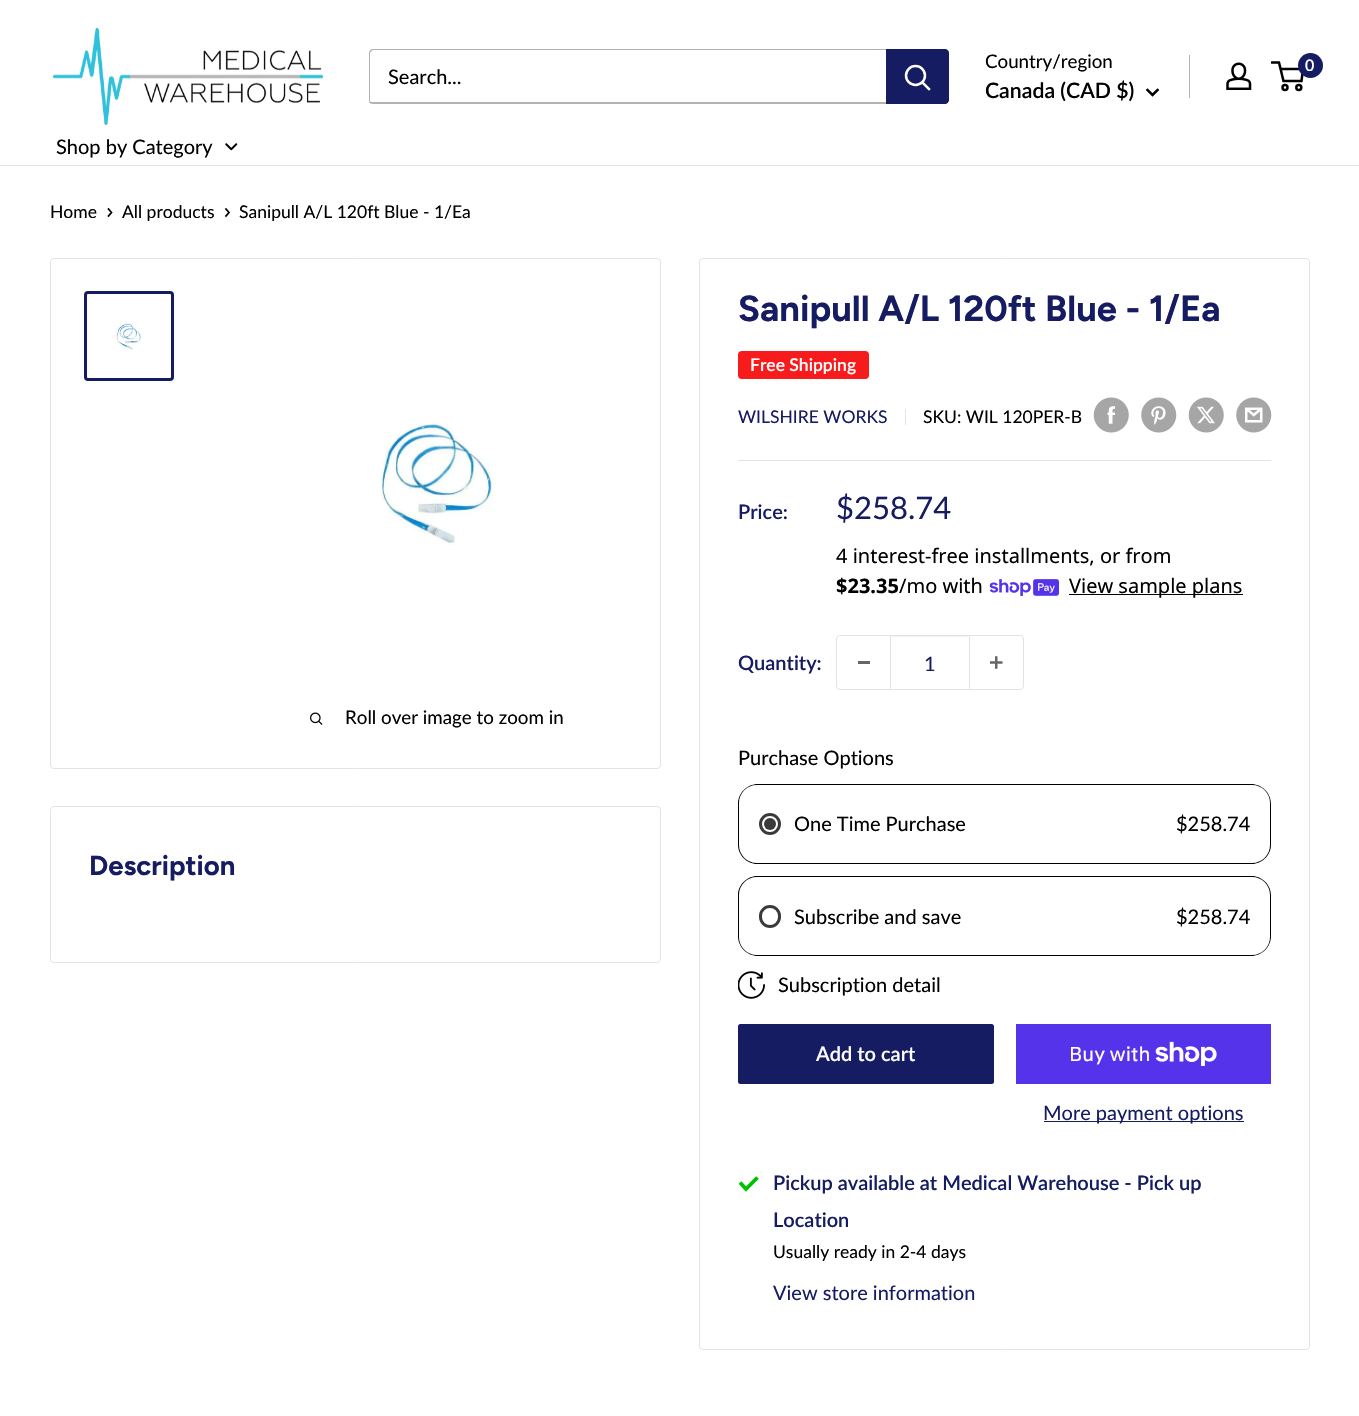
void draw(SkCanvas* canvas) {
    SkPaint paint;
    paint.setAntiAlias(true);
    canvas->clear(0xFFFFFFFF);
    canvas->drawImageRect(SkImages::DeferredFromEncodedData(SkData::MakeFromFileName("img1.png")), SkRect::MakeXYWH(52, 27, 272, 98), SkSamplingOptions());
    paint.setColor(0xFFB3B3B3);
    canvas->drawPath(SkPathBuilder().moveTo(369, 102).cubicTo(370, 103, 371, 104, 373, 104).lineTo(945, 104).cubicTo(947, 104, 949, 102, 949, 100).lineTo(949, 53).cubicTo(949, 52, 949, 51, 948, 50).lineTo(948, 91).cubicTo(948, 95, 950, 102, 944, 102).close().detach(), paint);
    paint.setColor(0x4D000000);
    canvas->drawPath(SkPathBuilder().moveTo(374, 50).lineTo(946, 50).lineTo(948, 51).cubicTo(948, 50, 946, 49, 945, 49).lineTo(373, 49).cubicTo(371, 49, 369, 51, 369, 53).lineTo(369, 100).cubicTo(369, 101, 370, 103, 371, 103).lineTo(370, 101).lineTo(370, 54).cubicTo(370, 52, 372, 50, 374, 50).close().detach(), paint);
    SkFont font1(fontMgr->matchFamilyStyle("Lato", SkFontStyle::Normal()), 20);
    font1.setSubpixel(true);
    paint.setColor(0xFF000000);
    canvas->drawString("Search...", 388, 84, font1, paint);
    paint.setColor(0xFF151C62);
    canvas->drawPath(SkPathBuilder().moveTo(886, 49).lineTo(945, 49).cubicTo(947, 49, 949, 51, 949, 53).lineTo(949, 100).cubicTo(949, 102, 947, 104, 945, 104).lineTo(886, 104).close().detach(), paint);
    paint.setStyle(SkPaint::kStroke_Style);
    paint.setStrokeWidth(2.5f);
    paint.setStrokeCap(SkPaint::kSquare_Cap);
    paint.setColor(0xFFFFFFFF);
    canvas->drawPath(SkPathBuilder().moveTo(929, 89).lineTo(922.5f, 82.5f).detach(), paint);
    paint.setStrokeCap(SkPaint::kButt_Cap);
    canvas->drawCircle(915.5f, 75.5f, 9.5f, paint);
    SkFont font2(fontMgr->matchFamilyStyle("Lato", SkFontStyle::Normal()), 18.75f);
    font2.setSubpixel(true);
    paint.setStyle(SkPaint::kFill_Style);
    paint.setColor(0xFF000000);
    canvas->drawString("Country/region", 985, 68, font2, paint);
    SkFont font3(fontMgr->matchFamilyStyle("Lato", SkFontStyle(600, SkFontStyle::kNormal_Width, SkFontStyle::kUpright_Slant)), 21.25f);
    font3.setSubpixel(true);
    canvas->drawString("Canada (CAD $)", 985, 98, font3, paint);
    paint.setStyle(SkPaint::kStroke_Style);
    paint.setStrokeCap(SkPaint::kSquare_Cap);
    canvas->drawPath(SkPathBuilder().moveTo(1157.5f, 90).lineTo(1152.5f, 95).lineTo(1147.5f, 90).detach(), paint);
    paint.setStyle(SkPaint::kFill_Style);
    paint.setColor(0xFFB3B3B3);
    canvas->drawRect(SkRect::MakeXYWH(1189, 55, 1, 43), paint);
    canvas->drawImageRect(SkImages::DeferredFromEncodedData(SkData::MakeFromFileName("img2.png")), SkRect::MakeXYWH(1226, 62, 26, 28), SkSamplingOptions());
    paint.setStyle(SkPaint::kStroke_Style);
    paint.setStrokeCap(SkPaint::kButt_Cap);
    paint.setColor(0xFF000000);
    canvas->drawCircle(1285, 87.5f, 2.5f, paint);
    canvas->drawCircle(1298.8f, 87.5f, 2.5f, paint);
    canvas->drawPath(SkPathBuilder().moveTo(1280.5f, 69).lineTo(1303, 69).lineTo(1301.5f, 81).lineTo(1283.5f, 81).lineTo(1279, 62.5f).lineTo(1271, 62.5f).detach(), paint);
    paint.setStyle(SkPaint::kFill_Style);
    paint.setColor(0xFF151C62);
    canvas->drawCircle(1310.5f, 65.5f, 12.5f, paint);
    SkFont font4(fontMgr->matchFamilyStyle("Lato", SkFontStyle(600, SkFontStyle::kNormal_Width, SkFontStyle::kUpright_Slant)), 16);
    font4.setSubpixel(true);
    paint.setColor(0xFFFFFFFF);
    canvas->drawString("0", 1305, 71, font4, paint);
    paint.setColor(0xFFE7E2DE);
    canvas->drawRect(SkRect::MakeXYWH(0, 165, 1359, 1), paint);
    paint.setColor(0xFF000000);
    canvas->drawString("Shop by Category", 56, 154, font1, paint);
    canvas->drawImageRect(SkImages::DeferredFromEncodedData(SkData::MakeFromFileName("img3.png")), SkRect::MakeXYWH(225, 143, 13, 8), SkSamplingOptions());
    SkFont font5(fontMgr->matchFamilyStyle("Lato", SkFontStyle::Normal()), 17.5f);
    font5.setSubpixel(true);
    canvas->drawString("Home", 50, 218, font5, paint);
    paint.setStyle(SkPaint::kStroke_Style);
    paint.setStrokeWidth(1.7f);
    paint.setStrokeCap(SkPaint::kSquare_Cap);
    canvas->drawPath(SkPathBuilder().moveTo(108.5f, 209).lineTo(111.5f, 212.5f).lineTo(108.5f, 216).detach(), paint);
    paint.setStyle(SkPaint::kFill_Style);
    canvas->drawString("All products", 122, 218, font5, paint);
    paint.setStyle(SkPaint::kStroke_Style);
    canvas->drawPath(SkPathBuilder().moveTo(226, 209).lineTo(229, 212.5f).lineTo(226, 216).detach(), paint);
    paint.setStyle(SkPaint::kFill_Style);
    canvas->drawString("Sanipull A/L 120ft Blue - 1/Ea", 239, 218, font5, paint);
    paint.setStyle(SkPaint::kStroke_Style);
    paint.setStrokeWidth(1);
    paint.setStrokeCap(SkPaint::kButt_Cap);
    paint.setColor(0xFFE7E2DE);
    canvas->drawRoundRect(SkRect::MakeXYWH(50.5f, 258.5f, 610, 510), 3.5f, 3.5f, paint);
    paint.setStrokeWidth(3);
    paint.setColor(0xFF151C62);
    canvas->drawRoundRect(SkRect::MakeXYWH(85.5f, 292.5f, 87, 87), 2.5f, 2.5f, paint);
    canvas->drawImageRect(SkImages::DeferredFromEncodedData(SkData::MakeFromFileName("img4.png")), SkRect::MakeXYWH(116, 323, 27, 27), SkSamplingOptions());
    canvas->drawImageRect(SkImages::DeferredFromEncodedData(SkData::MakeFromFileName("img5.png")), SkRect::MakeXYWH(381, 423, 112, 122), SkSamplingOptions());
    canvas->drawImageRect(SkImages::DeferredFromEncodedData(SkData::MakeFromFileName("img6.png")), SkRect::MakeXYWH(310, 712, 13, 13), SkSamplingOptions());
    paint.setStyle(SkPaint::kFill_Style);
    paint.setColor(0xFF000000);
    canvas->drawString("Roll over image to zoom in", 345, 724, font2, paint);
    paint.setStyle(SkPaint::kStroke_Style);
    paint.setStrokeWidth(1);
    paint.setColor(0xFFE7E2DE);
    canvas->drawRoundRect(SkRect::MakeXYWH(699.5f, 258.5f, 610, 1091), 3.5f, 3.5f, paint);
    SkFont font6(fontMgr->matchFamilyStyle("Figtree", SkFontStyle::Bold()), 36.25f);
    font6.setSubpixel(true);
    paint.setStyle(SkPaint::kFill_Style);
    paint.setColor(0xFF151C62);
    canvas->drawString("Sanipull A/L 120ft Blue - 1/Ea", 738, 321, font6, paint);
    paint.setColor(0xFFF71B1B);
    canvas->drawRoundRect(SkRect::MakeXYWH(738, 351, 131, 28), 4, 4, paint);
    SkFont font7(fontMgr->matchFamilyStyle("Lato", SkFontStyle(600, SkFontStyle::kNormal_Width, SkFontStyle::kUpright_Slant)), 17.5f);
    font7.setSubpixel(true);
    paint.setColor(0xFFFFFFFF);
    canvas->drawString("Free Shipping", 750, 371, font7, paint);
    paint.setColor(0xFF151C62);
    canvas->drawString("WILSHIRE WORKS", 738, 423, font5, paint);
    paint.setColor(0xFFE7E2DE);
    canvas->drawRect(SkRect::MakeXYWH(905, 409, 1, 16), paint);
    paint.setColor(0xFF000000);
    canvas->drawString("SKU: WIL 120PER-B", 923, 423, font5, paint);
    canvas->drawImageRect(SkImages::DeferredFromEncodedData(SkData::MakeFromFileName("img7.png")), SkRect::MakeXYWH(1093, 397, 36, 36), SkSamplingOptions());
    canvas->drawImageRect(SkImages::DeferredFromEncodedData(SkData::MakeFromFileName("img8.png")), SkRect::MakeXYWH(1141, 397, 36, 36), SkSamplingOptions());
    canvas->drawImageRect(SkImages::DeferredFromEncodedData(SkData::MakeFromFileName("img9.png")), SkRect::MakeXYWH(1188, 397, 36, 36), SkSamplingOptions());
    canvas->drawImageRect(SkImages::DeferredFromEncodedData(SkData::MakeFromFileName("img10.png")), SkRect::MakeXYWH(1236, 397, 36, 36), SkSamplingOptions());
    paint.setColor(0xFFE7E2DE);
    canvas->drawRect(SkRect::MakeXYWH(738, 460, 533, 1), paint);
    SkFont font8(fontMgr->matchFamilyStyle("Lato", SkFontStyle(600, SkFontStyle::kNormal_Width, SkFontStyle::kUpright_Slant)), 20);
    font8.setSubpixel(true);
    paint.setColor(0xFF151C62);
    canvas->drawString("Price:", 738, 519, font8, paint);
    SkFont font9(fontMgr->matchFamilyStyle("Lato", SkFontStyle::Normal()), 31);
    font9.setSubpixel(true);
    canvas->drawString("$258.74", 836, 519, font9, paint);
    SkFont font10(fontMgr->matchFamilyStyle("Noto Sans", SkFontStyle::Normal()), 20);
    font10.setSubpixel(true);
    paint.setColor(0xFF000000);
    canvas->drawString("4 interest-free installments, or from", 836, 563, font10, paint);
    SkFont font11(fontMgr->matchFamilyStyle("Noto Sans", SkFontStyle::Bold()), 20);
    font11.setSubpixel(true);
    canvas->drawString("$23.35", 836, 593, font11, paint);
    canvas->drawString("/mo with", 899, 593, font10, paint);
    canvas->drawImageRect(SkImages::DeferredFromEncodedData(SkData::MakeFromFileName("img11.png")), SkRect::MakeXYWH(989, 579, 70, 17), SkSamplingOptions());
    canvas->drawRect(SkRect::MakeXYWH(1069, 594, 174, 1), paint);
    canvas->drawString("View sample plans", 1069, 593, font10, paint);
    paint.setColor(0xFF151C62);
    canvas->drawString("Quantity:", 738, 670, font8, paint);
    paint.setStyle(SkPaint::kStroke_Style);
    paint.setColor(0xFFE7E2DE);
    canvas->drawRoundRect(SkRect::MakeXYWH(836.5f, 635.5f, 187, 54), 3.5f, 3.5f, paint);
    paint.setStyle(SkPaint::kFill_Style);
    paint.setColor(0xFF666666);
    canvas->drawRect(SkRect::MakeXYWH(858, 661, 12, 3), paint);
    paint.setColor(0xFFF5F3F2);
    canvas->drawRect(SkRect::MakeXYWH(891, 636, 78, 1), paint);
    paint.setColor(0xFFE7E2DE);
    canvas->drawRect(SkRect::MakeXYWH(969, 636, 1, 53), paint);
    canvas->drawRect(SkRect::MakeXYWH(890, 636, 1, 53), paint);
    paint.setColor(0xFF151C62);
    canvas->drawString("1", 924, 671, font1, paint);
    canvas->drawImageRect(SkImages::DeferredFromEncodedData(SkData::MakeFromFileName("img12.png")), SkRect::MakeXYWH(990, 656, 13, 13), SkSamplingOptions());
    paint.setColor(0xFF000000);
    canvas->drawString("Purchase Options", 738, 765, font1, paint);
    canvas->drawPath(SkPathBuilder(SkPathFillType::kEvenOdd).moveTo(758, 784).cubicTo(747, 784, 738, 793, 738, 804).lineTo(738, 845).cubicTo(738, 855, 747, 864, 757, 864).lineTo(1252, 864).cubicTo(1262, 864, 1271, 855, 1271, 845).lineTo(1271, 804).cubicTo(1271, 793, 1262, 784, 1251, 784).close().moveTo(757, 785).cubicTo(747, 785, 739, 793, 739, 803).lineTo(739, 845).cubicTo(739, 855, 747, 863, 757, 863).lineTo(1252, 863).cubicTo(1262, 863, 1270, 855, 1270, 845).lineTo(1270, 803).cubicTo(1270, 793, 1262, 785, 1252, 785).close().detach(), paint);
    paint.setStyle(SkPaint::kStroke_Style);
    paint.setStrokeWidth(3);
    paint.setColor(0xFF3A3A3A);
    canvas->drawCircle(770, 824, 9.5f, paint);
    paint.setStyle(SkPaint::kFill_Style);
    canvas->drawCircle(770, 824, 6, paint);
    paint.setColor(0xFF000000);
    canvas->drawString("One Time Purchase", 794, 831, font1, paint);
    canvas->drawString("$258.74", 1176, 831, font1, paint);
    canvas->drawPath(SkPathBuilder(SkPathFillType::kEvenOdd).moveTo(757, 876).cubicTo(747, 876, 738, 885, 738, 895).lineTo(738, 936).cubicTo(738, 947, 747, 956, 758, 956).lineTo(1251, 956).cubicTo(1262, 956, 1271, 947, 1271, 936).lineTo(1271, 895).cubicTo(1271, 885, 1262, 876, 1252, 876).close().moveTo(757, 877).cubicTo(747, 877, 739, 885, 739, 895).lineTo(739, 937).cubicTo(739, 947, 747, 955, 757, 955).lineTo(1252, 955).cubicTo(1262, 955, 1270, 947, 1270, 937).lineTo(1270, 895).cubicTo(1270, 885, 1262, 877, 1252, 877).close().detach(), paint);
    paint.setStyle(SkPaint::kStroke_Style);
    paint.setColor(0xFF3A3A3A);
    canvas->drawRoundRect(SkRect::MakeXYWH(760.5f, 906.5f, 19, 20), 9.5f, 9.5f, paint);
    paint.setStyle(SkPaint::kFill_Style);
    paint.setColor(0xFF000000);
    canvas->drawString("Subscribe and save", 794, 924, font1, paint);
    canvas->drawString("$258.74", 1176, 924, font1, paint);
    canvas->drawImageRect(SkImages::DeferredFromEncodedData(SkData::MakeFromFileName("img13.png")), SkRect::MakeXYWH(738, 971, 27, 28), SkSamplingOptions());
    canvas->drawString("Subscription detail", 778, 992, font1, paint);
    paint.setColor(0xFF151C62);
    canvas->drawRoundRect(SkRect::MakeXYWH(738, 1024, 256, 60), 2.5f, 2.5f, paint);
    paint.setColor(0xFFFFFFFF);
    canvas->drawString("Add to cart", 816, 1061, font8, paint);
    paint.setColor(0xFF5433EB);
    canvas->drawRect(SkRect::MakeXYWH(1016, 1024, 255, 60), paint);
    SkFont font12(fontMgr->matchFamilyStyle("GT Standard", SkFontStyle::Normal()), 20);
    font12.setSubpixel(true);
    paint.setColor(0xFFFFFFFF);
    canvas->drawString("Buy with", 1069, 1061, font12, paint);
    canvas->drawImageRect(SkImages::DeferredFromEncodedData(SkData::MakeFromFileName("img14.png")), SkRect::MakeXYWH(1155, 1041, 62, 25), SkSamplingOptions());
    paint.setColor(0xFF151C62);
    canvas->drawRect(SkRect::MakeXYWH(1044, 1121, 200, 1), paint);
    canvas->drawString("More payment options", 1043, 1120, font1, paint);
    paint.setStyle(SkPaint::kStroke_Style);
    paint.setStrokeWidth(3.8f);
    paint.setColor(0xFF00C200);
    canvas->drawPath(SkPathBuilder().moveTo(740, 1182.5f).lineTo(746, 1189).lineTo(757.5f, 1177.5f).detach(), paint);
    paint.setStyle(SkPaint::kFill_Style);
    paint.setColor(0xFF151C62);
    canvas->drawString("Pickup available at Medical Warehouse - Pick up", 773, 1190, font8, paint);
    canvas->drawString("Location", 773, 1227, font8, paint);
    paint.setColor(0xFF000000);
    canvas->drawString("Usually ready in 2-4 days", 773, 1258, font5, paint);
    paint.setColor(0xFF151C62);
    canvas->drawString("View store information", 773, 1300, font1, paint);
    paint.setStyle(SkPaint::kStroke_Style);
    paint.setStrokeWidth(1);
    paint.setColor(0xFFE7E2DE);
    canvas->drawRoundRect(SkRect::MakeXYWH(50.5f, 806.5f, 610, 156), 3.5f, 3.5f, paint);
    SkFont font13(fontMgr->matchFamilyStyle("Figtree", SkFontStyle::Bold()), 27.5f);
    font13.setSubpixel(true);
    paint.setStyle(SkPaint::kFill_Style);
    paint.setColor(0xFF151C62);
    canvas->drawString("Description", 89, 875, font13, paint);
}
